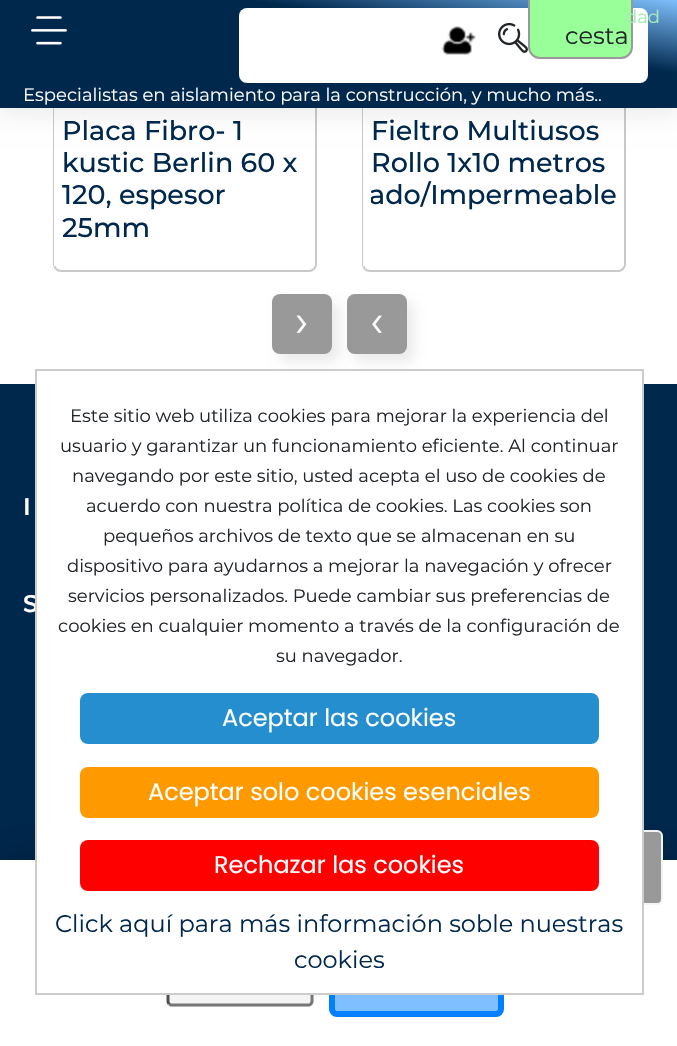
void draw(SkCanvas* canvas) {
    SkPaint paint;
    paint.setAntiAlias(true);
    canvas->clear(0xFFFFFFFF);
    paint.setStyle(SkPaint::kStroke_Style);
    paint.setStrokeWidth(2);
    paint.setColor(0xFFC9C9C9);
    canvas->drawRoundRect(SkRect::MakeXYWH(54, -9, 262, 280), 7, 7, paint);
    paint.setStyle(SkPaint::kFill_Style);
    paint.setColor(0xFFFFFFFF);
    canvas->drawRect(SkRect::MakeXYWH(54, 108, 261, 158), paint);
    paint.setStyle(SkPaint::kStroke_Style);
    paint.setColor(0xFFC9C9C9);
    canvas->drawRoundRect(SkRect::MakeXYWH(363, -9, 262, 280), 7, 7, paint);
    paint.setStyle(SkPaint::kFill_Style);
    paint.setColor(0xFFFFFFFF);
    canvas->drawRect(SkRect::MakeXYWH(363, 108, 261, 158), paint);
    paint.setColor(0x1A000000);
    paint.setMaskFilter(SkMaskFilter::MakeBlur(kNormal_SkBlurStyle, 13.5f));
    canvas->drawRect(SkRect::MakeXYWH(-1, -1, 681, 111), paint);
    paint.setMaskFilter(nullptr);
    {
        const SkColor colors[] = {0xFF80C1FF, 0xFF00284D, 0xFF00284D};
        const float stops[] = {0, 0.33f, 1};
        const SkPoint ends[] = {{358, -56}, {320, 164}};
        paint.setShader(SkGradientShader::MakeLinear(ends, colors, stops, 3, SkTileMode::kClamp));
        paint.setAlpha(255);
    }
    canvas->drawRect(SkRect::MakeXYWH(0, 0, 677, 108), paint);
    canvas->drawImageRect(SkImages::DeferredFromEncodedData(SkData::MakeFromFileName("img1.png")), SkRect::MakeXYWH(31, 16, 36, 29), SkSamplingOptions());
    paint.setShader(nullptr);
    paint.setColor(0xFFFFFFFF);
    canvas->drawRoundRect(SkRect::MakeXYWH(239, 8, 409, 75), 8, 8, paint);
    canvas->drawImageRect(SkImages::DeferredFromEncodedData(SkData::MakeFromFileName("img2.png")), SkRect::MakeXYWH(441, 26, 35, 29), SkSamplingOptions());
    canvas->drawImageRect(SkImages::DeferredFromEncodedData(SkData::MakeFromFileName("img3.png")), SkRect::MakeXYWH(498, 22, 30, 31), SkSamplingOptions());
    paint.setColor(0xFF99FF99);
    canvas->drawRoundRect(SkRect::MakeXYWH(529, -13, 103, 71), 11, 11, paint);
    paint.setStyle(SkPaint::kStroke_Style);
    paint.setColor(0xFF999999);
    canvas->drawRoundRect(SkRect::MakeXYWH(529, -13, 103, 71), 11, 11, paint);
    SkFont font1(fontMgr->matchFamilyStyle("Montserrat", SkFontStyle::Normal()), 18);
    font1.setSubpixel(true);
    paint.setStyle(SkPaint::kFill_Style);
    paint.setColor(0xFFA4EBB6);
    canvas->drawString("dad", 625, 23, font1, paint);
    SkFont font2(fontMgr->matchFamilyStyle("Montserrat", SkFontStyle::Normal()), 24);
    font2.setSubpixel(true);
    paint.setColor(0xFF212529);
    canvas->drawString("cesta", 565, 44, font2, paint);
    paint.setColor(0xFFFFFFFF);
    canvas->drawString("Especialistas en aislamiento para la construcción, y mucho más..", 23, 101, font1, paint);
    SkFont font3(fontMgr->matchFamilyStyle("Montserrat", SkFontStyle(500, SkFontStyle::kNormal_Width, SkFontStyle::kUpright_Slant)), 27);
    font3.setSubpixel(true);
    paint.setColor(0xFF00284D);
    canvas->drawString("Placa Fibro- 1", 62, 140, font3, paint);
    canvas->drawString("kustic Berlin 60 x", 62, 172, font3, paint);
    canvas->save();
    canvas->clipRect(SkRect::MakeXYWH(62, 116, 246, 135));
    canvas->drawString("120, espesor", 62, 204, font3, paint);
    canvas->restore();
    canvas->drawString("25mm", 62, 237, font3, paint);
    canvas->drawString("Fieltro Multiusos", 371, 140, font3, paint);
    canvas->drawString("Rollo 1x10 metros", 371, 172, font3, paint);
    canvas->save();
    canvas->clipRect(SkRect::MakeXYWH(371, 116, 246, 135));
    canvas->drawString("ado/Impermeable", 369, 204, font3, paint);
    canvas->restore();
    paint.setColor(0x14000000);
    paint.setMaskFilter(SkMaskFilter::MakeBlur(kNormal_SkBlurStyle, 6));
    canvas->drawRoundRect(SkRect::MakeXYWH(354, 302, 60, 60), 8, 8, paint);
    paint.setMaskFilter(nullptr);
    paint.setColor(0xFF999999);
    canvas->drawRoundRect(SkRect::MakeXYWH(347, 294, 60, 60), 8, 8, paint);
    paint.setColor(0x14000000);
    paint.setMaskFilter(SkMaskFilter::MakeBlur(kNormal_SkBlurStyle, 6));
    canvas->drawRoundRect(SkRect::MakeXYWH(279, 302, 60, 60), 8, 8, paint);
    paint.setMaskFilter(nullptr);
    paint.setColor(0xFF999999);
    canvas->drawRoundRect(SkRect::MakeXYWH(272, 294, 60, 60), 8, 8, paint);
    SkFont font4(fontMgr->matchFamilyStyle("Montserrat", SkFontStyle::Normal()), 45);
    font4.setSubpixel(true);
    paint.setColor(0xFFFFFFFF);
    canvas->drawString("›", 295, 336, font4, paint);
    canvas->drawString("‹", 370, 336, font4, paint);
    paint.setColor(0xFF00284D);
    canvas->drawRect(SkRect::MakeXYWH(0, 384, 677, 476), paint);
    SkFont font5(fontMgr->matchFamilyStyle("Montserrat", SkFontStyle(600, SkFontStyle::kNormal_Width, SkFontStyle::kUpright_Slant)), 24);
    font5.setSubpixel(true);
    paint.setColor(0xFFFFFFFF);
    canvas->drawString("I", 23, 515, font5, paint);
    canvas->drawString("S", 23, 612, font5, paint);
    paint.setColor(0x33000000);
    paint.setMaskFilter(SkMaskFilter::MakeBlur(kNormal_SkBlurStyle, 19));
    canvas->drawRect(SkRect::MakeXYWH(-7, 852, 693, 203), paint);
    paint.setMaskFilter(nullptr);
    paint.setColor(0xFFFFFFFF);
    canvas->drawRect(SkRect::MakeXYWH(0, 860, 677, 186), paint);
    paint.setColor(0xFFF4F4F4);
    canvas->drawRoundRect(SkRect::MakeXYWH(167, 947, 147, 60), 5, 5, paint);
    paint.setStyle(SkPaint::kStroke_Style);
    paint.setStrokeWidth(3);
    paint.setColor(0xFF767676);
    canvas->drawPath(SkPathBuilder().moveTo(311, 949).lineTo(312, 951).lineTo(312, 1002).lineTo(311, 1004).lineTo(309, 1005).lineTo(171, 1005).lineTo(169, 1004).detach(), paint);
    paint.setColor(0xFF4F4F4F);
    canvas->drawPath(SkPathBuilder().moveTo(169, 1004).lineTo(168, 1002).lineTo(168, 951).lineTo(169, 949).lineTo(171, 948).lineTo(309, 948).lineTo(311, 949).detach(), paint);
    paint.setStyle(SkPaint::kFill_Style);
    paint.setColor(0xFF80BFFF);
    canvas->drawRoundRect(SkRect::MakeXYWH(332, 938, 169, 76), 5, 5, paint);
    paint.setStyle(SkPaint::kStroke_Style);
    paint.setStrokeWidth(6);
    paint.setColor(0xFF0080FF);
    canvas->drawRoundRect(SkRect::MakeXYWH(332, 938, 169, 76), 5, 5, paint);
    paint.setStyle(SkPaint::kFill_Style);
    paint.setColor(0xFF999999);
    canvas->drawRoundRect(SkRect::MakeXYWH(589, 831, 73, 73), 5, 5, paint);
    paint.setStyle(SkPaint::kStroke_Style);
    paint.setStrokeWidth(2);
    paint.setColor(0xFFF4F4F4);
    canvas->drawRoundRect(SkRect::MakeXYWH(589, 831, 73, 73), 5, 5, paint);
    paint.setStyle(SkPaint::kFill_Style);
    paint.setColor(0xFFFFFFFF);
    canvas->drawRect(SkRect::MakeXYWH(37, 384, 605, 609), paint);
    paint.setStyle(SkPaint::kStroke_Style);
    paint.setColor(0xFFCCCCCC);
    canvas->drawRect(SkRect::MakeXYWH(36, 370, 607, 624), paint);
    paint.setStyle(SkPaint::kFill_Style);
    paint.setColor(0xFF212529);
    canvas->drawString("Este sitio web utiliza cookies para mejorar la experiencia del", 70, 422, font1, paint);
    canvas->drawString("usuario y garantizar un funcionamiento eficiente. Al continuar", 60, 452, font1, paint);
    canvas->drawString("navegando por este sitio, usted acepta el uso de cookies de", 72, 482, font1, paint);
    canvas->drawString("acuerdo con nuestra política de cookies. Las cookies son", 86, 512, font1, paint);
    canvas->drawString("pequeños archivos de texto que se almacenan en su", 103, 542, font1, paint);
    canvas->drawString("dispositivo para ayudarnos a mejorar la navegación y ofrecer", 67, 572, font1, paint);
    canvas->drawString("servicios personalizados. Puede cambiar sus preferencias de", 68, 602, font1, paint);
    canvas->drawString("cookies en cualquier momento a través de la configuración de", 58, 632, font1, paint);
    canvas->drawString("su navegador.", 276, 662, font1, paint);
    paint.setColor(0xFF248ECE);
    canvas->drawRoundRect(SkRect::MakeXYWH(80, 693, 519, 51), 8, 8, paint);
    SkFont font6(fontMgr->matchFamilyStyle("Poppins", SkFontStyle::Normal()), 24);
    font6.setSubpixel(true);
    paint.setColor(0xFFFFFFFF);
    canvas->drawString("Aceptar las cookies", 222, 726, font6, paint);
    paint.setColor(0xFFFF9900);
    canvas->drawRoundRect(SkRect::MakeXYWH(80, 767, 519, 51), 8, 8, paint);
    paint.setColor(0xFFFFFFFF);
    canvas->drawString("Aceptar solo cookies esenciales", 148, 800, font6, paint);
    paint.setColor(0xFFFF0000);
    canvas->drawRoundRect(SkRect::MakeXYWH(80, 840, 519, 51), 8, 8, paint);
    paint.setColor(0xFFFFFFFF);
    canvas->drawString("Rechazar las cookies", 214, 873, font6, paint);
    paint.setColor(0xFF00284D);
    canvas->drawString("Click aquí para más información soble nuestras", 55, 932, font2, paint);
    canvas->drawString("cookies", 294, 968, font2, paint);
}
